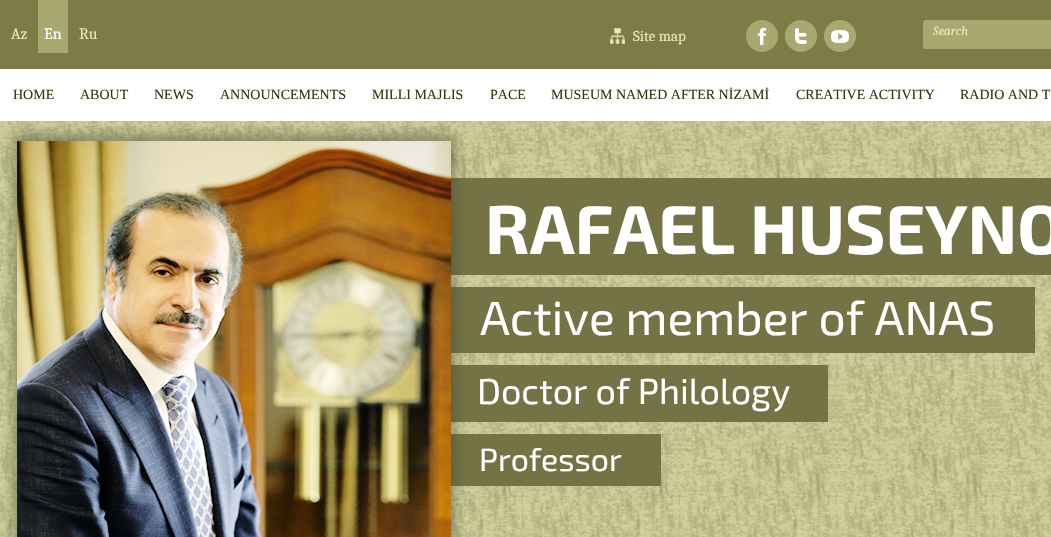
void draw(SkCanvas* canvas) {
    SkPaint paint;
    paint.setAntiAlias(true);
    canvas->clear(0xFFFFFFFF);
    paint.setColor(0xFF7C7C46);
    canvas->drawRect(SkRect::MakeXYWH(0, 0, 1051, 69), paint);
    SkFont font1(fontMgr->matchFamilyStyle("Caladea", SkFontStyle::Normal()), 16);
    font1.setSubpixel(true);
    paint.setColor(0xFFE8E8B7);
    canvas->drawString("Az", 11, 39, font1, paint);
    paint.setColor(0xFFA8A871);
    canvas->drawRect(SkRect::MakeXYWH(38, 0, 30, 53), paint);
    paint.setColor(0xFFFFFFFF);
    canvas->drawString("En", 44, 39, font1, paint);
    paint.setColor(0xFFE8E8B7);
    canvas->drawString("Ru", 79, 39, font1, paint);
    canvas->drawImageRect(SkImages::DeferredFromEncodedData(SkData::MakeFromFileName("img1.png")), SkRect::MakeXYWH(610, 28, 15, 16), SkSamplingOptions());
    SkFont font2(fontMgr->matchFamilyStyle("Caladea", SkFontStyle::Normal()), 15);
    font2.setSubpixel(true);
    canvas->drawString("Site map", 633, 41, font2, paint);
    paint.setColor(0xFFA8A871);
    canvas->drawCircle(762, 36, 16, paint);
    canvas->drawImageRect(SkImages::DeferredFromEncodedData(SkData::MakeFromFileName("img2.png")), SkRect::MakeXYWH(758, 28, 8, 17), SkSamplingOptions());
    canvas->drawCircle(801, 36, 16, paint);
    canvas->drawImageRect(SkImages::DeferredFromEncodedData(SkData::MakeFromFileName("img3.png")), SkRect::MakeXYWH(795, 28, 12, 16), SkSamplingOptions());
    canvas->drawCircle(840, 36, 16, paint);
    canvas->drawImageRect(SkImages::DeferredFromEncodedData(SkData::MakeFromFileName("img4.png")), SkRect::MakeXYWH(831, 30, 18, 13), SkSamplingOptions());
    canvas->drawRoundRect(SkRect::MakeXYWH(923, 20, 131, 29), 3, 3, paint);
    SkFont font3(fontMgr->matchFamilyStyle("Caladea", SkFontStyle::Italic()), 13);
    font3.setSubpixel(true);
    paint.setColor(0xFFE8E8B7);
    canvas->drawString("Search", 933, 35, font3, paint);
    SkFont font4(fontMgr->matchFamilyStyle("Liberation Serif", SkFontStyle::Normal()), 14);
    font4.setSubpixel(true);
    paint.setColor(0xFF36360E);
    canvas->drawString("HOME", 13, 99, font4, paint);
    canvas->drawString("ABOUT", 80, 99, font4, paint);
    canvas->drawString("NEWS", 154, 99, font4, paint);
    canvas->drawString("ANNOUNCEMENTS", 220, 99, font4, paint);
    canvas->drawString("MILLI MAJLIS", 372, 99, font4, paint);
    canvas->drawString("PACE", 490, 99, font4, paint);
    canvas->drawString("MUSEUM NAMED AFTER NİZAMİ", 551, 99, font4, paint);
    canvas->drawString("CREATIVE ACTIVITY", 796, 99, font4, paint);
    canvas->drawString("RADIO AND T", 960, 99, font4, paint);
    canvas->drawImageRect(SkImages::DeferredFromEncodedData(SkData::MakeFromFileName("img5.png")), SkRect::MakeXYWH(0, 121, 1051, 416), SkSamplingOptions());
    paint.setColor(0xFF737346);
    canvas->drawRect(SkRect::MakeXYWH(450, 178, 601, 97), paint);
    canvas->drawRect(SkRect::MakeXYWH(450, 287, 585, 66), paint);
    canvas->drawRect(SkRect::MakeXYWH(450, 365, 378, 57), paint);
    canvas->drawRect(SkRect::MakeXYWH(450, 434, 211, 52), paint);
    canvas->drawImageRect(SkImages::DeferredFromEncodedData(SkData::MakeFromFileName("img6.png")), SkRect::MakeXYWH(4, 125, 460, 412), SkSamplingOptions());
    SkFont font5(fontMgr->matchFamilyStyle("Exo 2", SkFontStyle::Bold()), 69);
    font5.setSubpixel(true);
    paint.setColor(0xFFFFFFFF);
    canvas->drawString("RAFAEL HUSEYNO", 485, 254, font5, paint);
    SkFont font6(fontMgr->matchFamilyStyle("Exo 2", SkFontStyle::Normal()), 48);
    font6.setSubpixel(true);
    canvas->drawString("Active member of ANAS", 480, 335, font6, paint);
    SkFont font7(fontMgr->matchFamilyStyle("Exo 2", SkFontStyle::Normal()), 36);
    font7.setSubpixel(true);
    canvas->drawString("Doctor of Philology", 477, 404, font7, paint);
    SkFont font8(fontMgr->matchFamilyStyle("Exo 2", SkFontStyle::Normal()), 32);
    font8.setSubpixel(true);
    canvas->drawString("Professor", 479, 471, font8, paint);
}
